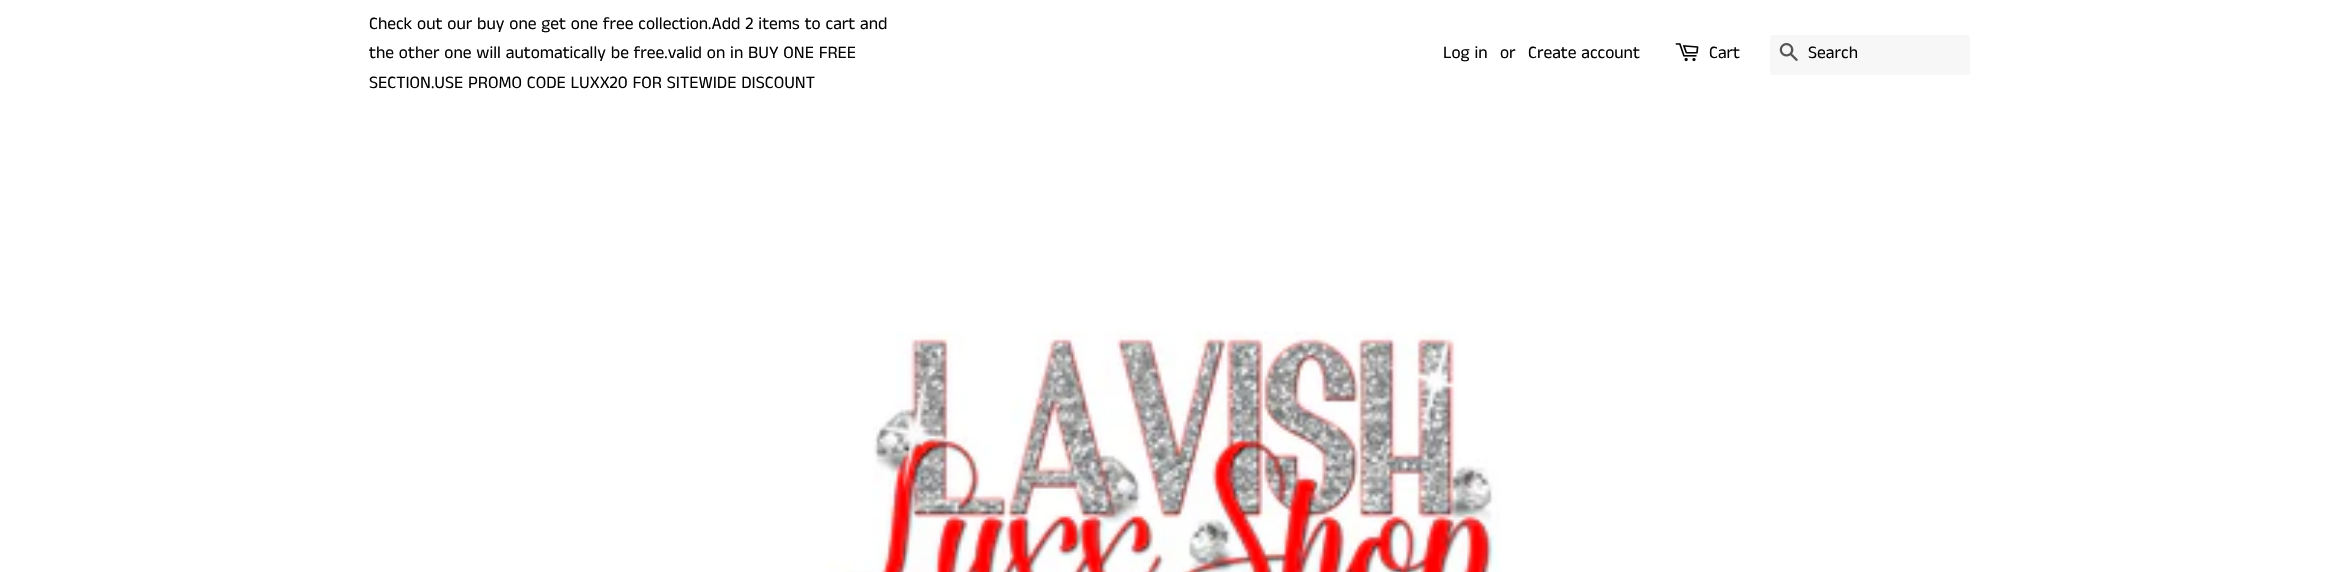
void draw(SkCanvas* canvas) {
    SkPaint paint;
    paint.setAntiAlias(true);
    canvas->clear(0xFFFFFFFF);
    SkFont font1(fontMgr->matchFamilyStyle("Anek Tamil", SkFontStyle::Normal()), 17.5f);
    font1.setSubpixel(true);
    paint.setColor(0xFF030303);
    canvas->drawString("Check out our buy one get one free collection.Add 2 items to cart and", 369, 29, font1, paint);
    canvas->drawString("the other one will automatically be free.valid on in BUY ONE FREE", 369, 58, font1, paint);
    canvas->drawString("SECTION.USE PROMO CODE LUXX20 FOR SITEWIDE DISCOUNT", 369, 88, font1, paint);
    canvas->drawString("Log in", 1443, 58, font1, paint);
    canvas->drawString("or", 1500, 58, font1, paint);
    canvas->drawString("Create account", 1528, 58, font1, paint);
    canvas->drawImageRect(SkImages::DeferredFromEncodedData(SkData::MakeFromFileName("img1.png")), SkRect::MakeXYWH(1675, 43, 24, 19), SkSamplingOptions());
    canvas->drawString("Cart", 1709, 58, font1, paint);
    paint.setColor(0xFFF7F7F7);
    canvas->drawRoundRect(SkRect::MakeXYWH(1770, 35, 200, 40), 2.5f, 2.5f, paint);
    canvas->drawImageRect(SkImages::DeferredFromEncodedData(SkData::MakeFromFileName("img2.png")), SkRect::MakeXYWH(1779, 43, 19, 18), SkSamplingOptions());
    paint.setColor(0xFF030303);
    canvas->drawString("Search", 1808, 58, font1, paint);
    canvas->drawImageRect(SkImages::DeferredFromEncodedData(SkData::MakeFromFileName("img3.png")), SkRect::MakeXYWH(828, 331, 672, 241), SkSamplingOptions());
}
